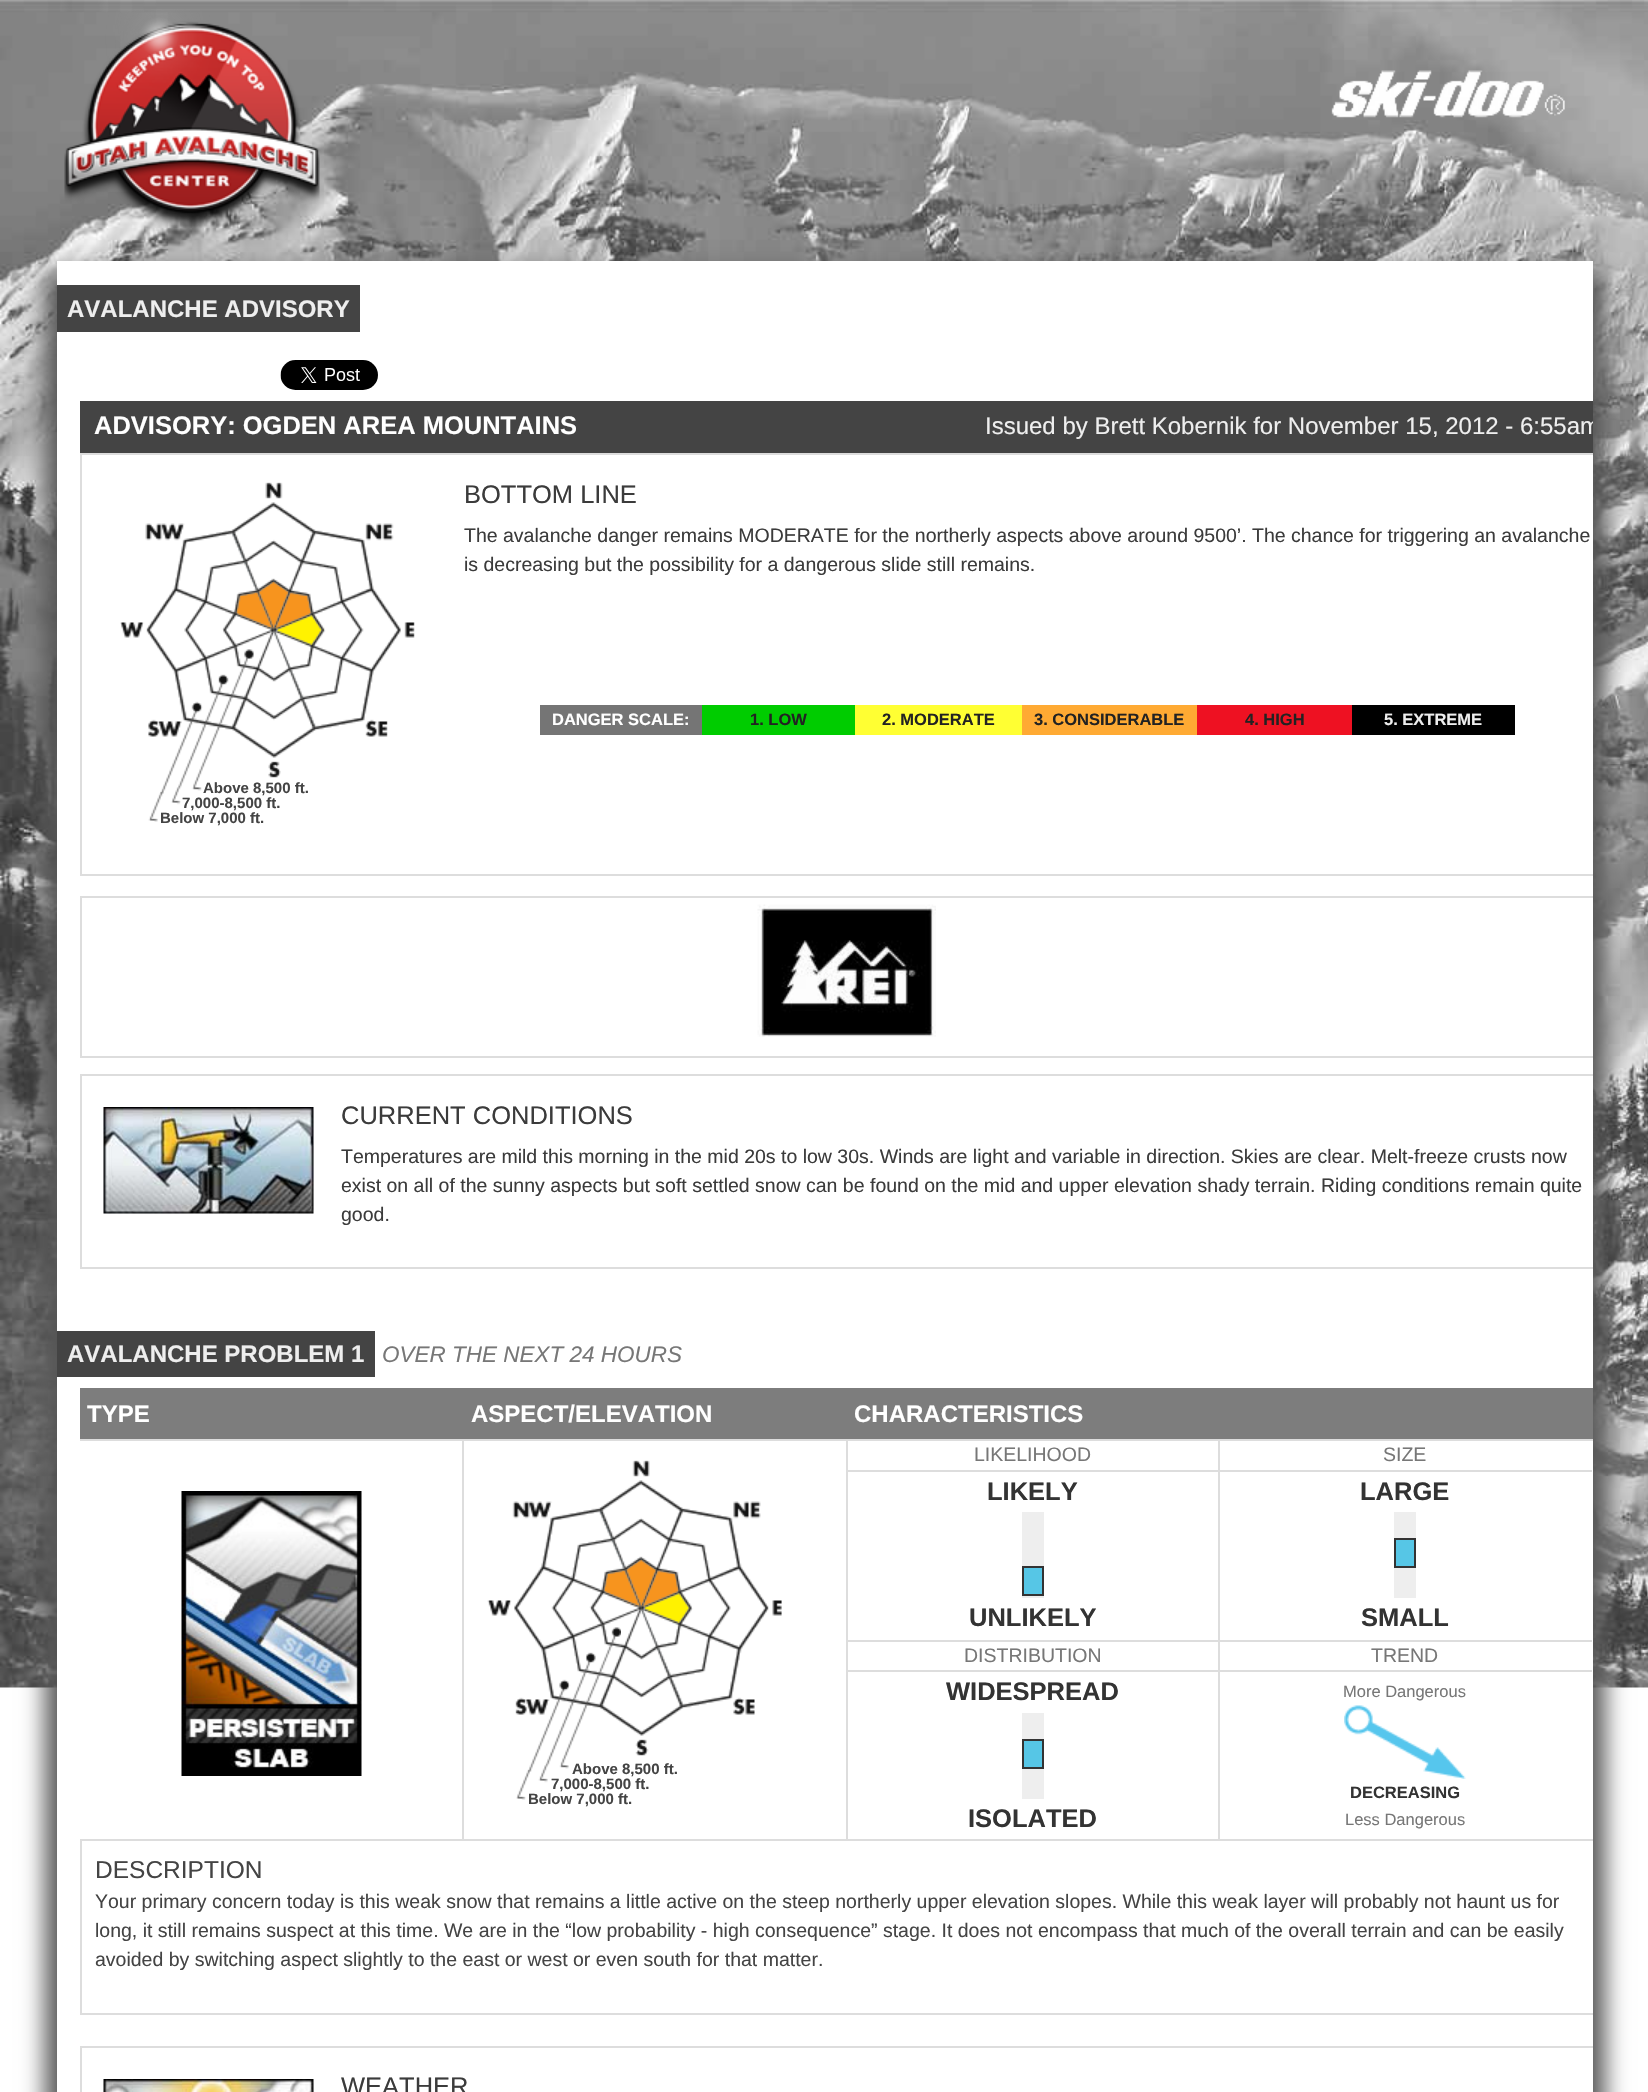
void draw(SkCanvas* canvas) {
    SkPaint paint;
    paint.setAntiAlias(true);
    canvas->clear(0xFFFFFFFF);
    canvas->drawImageRect(SkImages::DeferredFromEncodedData(SkData::MakeFromFileName("img1.png")), SkRect::MakeXYWH(0, 0, 1648, 1688), SkSamplingOptions());
    canvas->drawImageRect(SkImages::DeferredFromEncodedData(SkData::MakeFromFileName("img2.png")), SkRect::MakeXYWH(64, 9, 256, 218), SkSamplingOptions());
    canvas->drawImageRect(SkImages::DeferredFromEncodedData(SkData::MakeFromFileName("img3.png")), SkRect::MakeXYWH(1331, 70, 234, 48), SkSamplingOptions());
    paint.setColor(0xFF555555);
    paint.setMaskFilter(SkMaskFilter::MakeBlur(kNormal_SkBlurStyle, 11));
    canvas->drawRect(SkRect::MakeXYWH(45, 272, 1560, 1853), paint);
    paint.setMaskFilter(nullptr);
    paint.setColor(0xFFFFFFFF);
    canvas->drawRect(SkRect::MakeXYWH(57, 261, 1536, 1831), paint);
    paint.setColor(0xFF444444);
    canvas->drawRect(SkRect::MakeXYWH(57, 285, 303, 47), paint);
    SkFont font1(fontMgr->matchFamilyStyle("Liberation Sans", SkFontStyle::Bold()), 24);
    font1.setSubpixel(true);
    paint.setColor(0xFFEEEEEE);
    canvas->drawString("AVALANCHE ADVISORY", 67, 317, font1, paint);
    canvas->drawImageRect(SkImages::DeferredFromEncodedData(SkData::MakeFromFileName("img4.png")), SkRect::MakeXYWH(280, 360, 98, 30), SkSamplingOptions());
    paint.setColor(0xFF444444);
    canvas->drawRect(SkRect::MakeXYWH(80, 401, 1513, 52), paint);
    SkFont font2(fontMgr->matchFamilyStyle("Liberation Sans", SkFontStyle::Bold()), 25.5f);
    font2.setSubpixel(true);
    paint.setColor(0xFFFFFFFF);
    canvas->drawString("ADVISORY: OGDEN AREA MOUNTAINS", 94, 434, font2, paint);
    canvas->save();
    canvas->clipRect(SkRect::MakeXYWH(57, 261, 1536, 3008));
    SkFont font3(fontMgr->matchFamilyStyle("Liberation Sans", SkFontStyle::Normal()), 24);
    font3.setSubpixel(true);
    paint.setColor(0xFFEEEEEE);
    canvas->drawString("Issued by Brett Kobernik for November 15, 2012 - 6:55am", 985, 434, font3, paint);
    paint.setStyle(SkPaint::kStroke_Style);
    paint.setStrokeWidth(2);
    paint.setColor(0xFFDDDDDD);
    canvas->drawRect(SkRect::MakeXYWH(81, 454, 1534, 421), paint);
    canvas->restore();
    SkFont font4(fontMgr->matchFamilyStyle("Liberation Sans", SkFontStyle::Normal()), 25.5f);
    font4.setSubpixel(true);
    paint.setStyle(SkPaint::kFill_Style);
    paint.setColor(0xFF3B3B3B);
    canvas->drawString("BOTTOM LINE", 464, 503, font4, paint);
    SkFont font5(fontMgr->matchFamilyStyle("Liberation Sans", SkFontStyle::Normal()), 19.5f);
    font5.setSubpixel(true);
    canvas->drawString("The avalanche danger remains MODERATE for the northerly aspects above around 9500’. The chance for triggering an avalanche", 464, 542, font5, paint);
    canvas->drawString("is decreasing but the possibility for a dangerous slide still remains.", 464, 571, font5, paint);
    paint.setColor(0xFF757575);
    canvas->drawRect(SkRect::MakeXYWH(540, 705, 162, 30), paint);
    SkFont font6(fontMgr->matchFamilyStyle("Liberation Sans", SkFontStyle::Bold()), 16.5f);
    font6.setSubpixel(true);
    paint.setColor(0xFFFFFFFF);
    canvas->drawString("DANGER SCALE:", 552, 725, font6, paint);
    paint.setColor(0xFF00CC00);
    canvas->drawRect(SkRect::MakeXYWH(702, 705, 153, 30), paint);
    paint.setColor(0xFF222222);
    canvas->drawString("1. LOW", 750, 725, font6, paint);
    paint.setColor(0xFFFFFF33);
    canvas->drawRect(SkRect::MakeXYWH(855, 705, 167, 30), paint);
    paint.setColor(0xFF222222);
    canvas->drawString("2. MODERATE", 882, 725, font6, paint);
    paint.setColor(0xFFFFAA33);
    canvas->drawRect(SkRect::MakeXYWH(1022, 705, 175, 30), paint);
    paint.setColor(0xFF222222);
    canvas->drawString("3. CONSIDERABLE", 1034, 725, font6, paint);
    paint.setColor(0xFFEE1122);
    canvas->drawRect(SkRect::MakeXYWH(1197, 705, 155, 30), paint);
    paint.setColor(0xFF222222);
    canvas->drawString("4. HIGH", 1245, 725, font6, paint);
    paint.setColor(0xFF000000);
    canvas->drawRect(SkRect::MakeXYWH(1352, 705, 163, 30), paint);
    paint.setColor(0xFFEEEEEE);
    canvas->drawString("5. EXTREME", 1384, 725, font6, paint);
    canvas->drawImageRect(SkImages::DeferredFromEncodedData(SkData::MakeFromFileName("img7.png")), SkRect::MakeXYWH(258, 582, 32, 47), SkSamplingOptions());
    canvas->drawImageRect(SkImages::DeferredFromEncodedData(SkData::MakeFromFileName("img6.png")), SkRect::MakeXYWH(235, 591, 38, 38), SkSamplingOptions());
    canvas->drawImageRect(SkImages::DeferredFromEncodedData(SkData::MakeFromFileName("img8.png")), SkRect::MakeXYWH(276, 592, 36, 37), SkSamplingOptions());
    canvas->drawImageRect(SkImages::DeferredFromEncodedData(SkData::MakeFromFileName("img9.png")), SkRect::MakeXYWH(277, 615, 46, 30), SkSamplingOptions());
    canvas->drawImageRect(SkImages::DeferredFromEncodedData(SkData::MakeFromFileName("img5.png")), SkRect::MakeXYWH(120, 482, 295, 296), SkSamplingOptions());
    SkFont font7(fontMgr->matchFamilyStyle("Liberation Sans", SkFontStyle::Bold()), 15);
    font7.setSubpixel(true);
    paint.setColor(0xFF444444);
    canvas->drawString("Above 8,500 ft.", 203, 793, font7, paint);
    canvas->drawString("7,000-8,500 ft.", 182, 808, font7, paint);
    canvas->drawString("Below 7,000 ft.", 160, 823, font7, paint);
    canvas->drawImageRect(SkImages::DeferredFromEncodedData(SkData::MakeFromFileName("img10.png")), SkRect::MakeXYWH(148, 649, 106, 173), SkSamplingOptions());
    canvas->save();
    canvas->clipRect(SkRect::MakeXYWH(57, 261, 1536, 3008));
    paint.setStyle(SkPaint::kStroke_Style);
    paint.setColor(0xFFDDDDDD);
    canvas->drawRect(SkRect::MakeXYWH(81, 897, 1534, 160), paint);
    canvas->restore();
    canvas->drawImageRect(SkImages::DeferredFromEncodedData(SkData::MakeFromFileName("img11.png")), SkRect::MakeXYWH(757, 904, 179, 133), SkSamplingOptions());
    canvas->save();
    canvas->clipRect(SkRect::MakeXYWH(57, 261, 1536, 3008));
    canvas->drawRect(SkRect::MakeXYWH(81, 1075, 1534, 193), paint);
    canvas->restore();
    canvas->drawImageRect(SkImages::DeferredFromEncodedData(SkData::MakeFromFileName("img12.png")), SkRect::MakeXYWH(103, 1107, 211, 107), SkSamplingOptions());
    paint.setStyle(SkPaint::kFill_Style);
    paint.setColor(0xFF3B3B3B);
    canvas->drawString("CURRENT CONDITIONS", 341, 1124, font4, paint);
    canvas->drawString("Temperatures are mild this morning in the mid 20s to low 30s. Winds are light and variable in direction. Skies are clear. Melt-freeze crusts now", 341, 1163, font5, paint);
    canvas->drawString("exist on all of the sunny aspects but soft settled snow can be found on the mid and upper elevation shady terrain. Riding conditions remain quite", 341, 1192, font5, paint);
    canvas->drawString("good.", 341, 1221, font5, paint);
    paint.setColor(0xFF444444);
    canvas->drawRect(SkRect::MakeXYWH(57, 1331, 318, 46), paint);
    paint.setColor(0xFFEEEEEE);
    canvas->drawString("AVALANCHE PROBLEM 1", 67, 1362, font1, paint);
    SkFont font8(fontMgr->matchFamilyStyle("Liberation Sans", SkFontStyle::Italic()), 22.5f);
    font8.setSubpixel(true);
    paint.setColor(0xFF777777);
    canvas->drawString("OVER THE NEXT 24 HOURS", 382, 1362, font8, paint);
    paint.setColor(0xFF7D7D7D);
    canvas->drawRect(SkRect::MakeXYWH(80, 1388, 1513, 51), paint);
    paint.setColor(0xFFFFFFFF);
    canvas->drawString("TYPE", 87, 1422, font1, paint);
    canvas->drawString("ASPECT/ELEVATION", 471, 1422, font1, paint);
    canvas->drawString("CHARACTERISTICS", 854, 1422, font1, paint);
    paint.setColor(0xFFDDDDDD);
    canvas->drawRect(SkRect::MakeXYWH(1218, 1670, 374, 2), paint);
    canvas->drawRect(SkRect::MakeXYWH(1218, 1670, 2, 171), paint);
    canvas->drawRect(SkRect::MakeXYWH(80, 1839, 1513, 2), paint);
    canvas->drawRect(SkRect::MakeXYWH(462, 1439, 2, 402), paint);
    canvas->drawRect(SkRect::MakeXYWH(846, 1439, 2, 402), paint);
    canvas->drawRect(SkRect::MakeXYWH(1218, 1470, 374, 2), paint);
    canvas->drawRect(SkRect::MakeXYWH(1218, 1640, 374, 2), paint);
    canvas->drawRect(SkRect::MakeXYWH(848, 1670, 372, 2), paint);
    canvas->drawRect(SkRect::MakeXYWH(1218, 1640, 2, 31), paint);
    canvas->drawRect(SkRect::MakeXYWH(848, 1640, 372, 2), paint);
    canvas->drawRect(SkRect::MakeXYWH(1218, 1470, 2, 171), paint);
    canvas->drawRect(SkRect::MakeXYWH(848, 1470, 372, 2), paint);
    canvas->drawRect(SkRect::MakeXYWH(1218, 1440, 2, 32), paint);
    canvas->drawRect(SkRect::MakeXYWH(80, 1439, 1513, 2), paint);
    canvas->drawImageRect(SkImages::DeferredFromEncodedData(SkData::MakeFromFileName("img13.png")), SkRect::MakeXYWH(181, 1491, 181, 285), SkSamplingOptions());
    canvas->drawImageRect(SkImages::DeferredFromEncodedData(SkData::MakeFromFileName("img15.png")), SkRect::MakeXYWH(625, 1560, 32, 47), SkSamplingOptions());
    canvas->drawImageRect(SkImages::DeferredFromEncodedData(SkData::MakeFromFileName("img16.png")), SkRect::MakeXYWH(603, 1569, 38, 38), SkSamplingOptions());
    canvas->drawImageRect(SkImages::DeferredFromEncodedData(SkData::MakeFromFileName("img17.png")), SkRect::MakeXYWH(643, 1570, 37, 37), SkSamplingOptions());
    canvas->drawImageRect(SkImages::DeferredFromEncodedData(SkData::MakeFromFileName("img18.png")), SkRect::MakeXYWH(645, 1593, 45, 30), SkSamplingOptions());
    canvas->drawImageRect(SkImages::DeferredFromEncodedData(SkData::MakeFromFileName("img14.png")), SkRect::MakeXYWH(487, 1460, 295, 296), SkSamplingOptions());
    paint.setColor(0xFF444444);
    canvas->drawString("Above 8,500 ft.", 572, 1774, font7, paint);
    canvas->drawString("7,000-8,500 ft.", 551, 1789, font7, paint);
    canvas->drawString("Below 7,000 ft.", 528, 1804, font7, paint);
    canvas->drawImageRect(SkImages::DeferredFromEncodedData(SkData::MakeFromFileName("img19.png")), SkRect::MakeXYWH(516, 1627, 105, 173), SkSamplingOptions());
    paint.setColor(0xFF777777);
    canvas->drawString("LIKELIHOOD", 974, 1461, font5, paint);
    canvas->drawString("SIZE", 1383, 1461, font5, paint);
    paint.setColor(0xFF333333);
    canvas->drawString("LIKELY", 987, 1500, font2, paint);
    paint.setColor(0xFFEEEEEE);
    canvas->drawRect(SkRect::MakeXYWH(1022, 1512, 22, 86), paint);
    paint.setColor(0xFF56C6E6);
    canvas->drawRect(SkRect::MakeXYWH(1023, 1567, 20, 28), paint);
    paint.setStyle(SkPaint::kStroke_Style);
    paint.setColor(0xFF333333);
    canvas->drawRect(SkRect::MakeXYWH(1023, 1567, 20, 28), paint);
    paint.setStyle(SkPaint::kFill_Style);
    canvas->drawString("UNLIKELY", 969, 1626, font2, paint);
    canvas->drawString("LARGE", 1360, 1500, font2, paint);
    paint.setColor(0xFFEEEEEE);
    canvas->drawRect(SkRect::MakeXYWH(1394, 1512, 22, 86), paint);
    paint.setColor(0xFF56C6E6);
    canvas->drawRect(SkRect::MakeXYWH(1395, 1539, 20, 28), paint);
    paint.setStyle(SkPaint::kStroke_Style);
    paint.setColor(0xFF333333);
    canvas->drawRect(SkRect::MakeXYWH(1395, 1539, 20, 28), paint);
    paint.setStyle(SkPaint::kFill_Style);
    canvas->drawString("SMALL", 1361, 1626, font2, paint);
    paint.setColor(0xFF777777);
    canvas->drawString("DISTRIBUTION", 964, 1662, font5, paint);
    canvas->drawString("TREND", 1371, 1662, font5, paint);
    paint.setColor(0xFF333333);
    canvas->drawString("WIDESPREAD", 946, 1700, font2, paint);
    paint.setColor(0xFFEEEEEE);
    canvas->drawRect(SkRect::MakeXYWH(1022, 1713, 22, 86), paint);
    paint.setColor(0xFF56C6E6);
    canvas->drawRect(SkRect::MakeXYWH(1023, 1740, 20, 28), paint);
    paint.setStyle(SkPaint::kStroke_Style);
    paint.setColor(0xFF333333);
    canvas->drawRect(SkRect::MakeXYWH(1023, 1740, 20, 28), paint);
    paint.setStyle(SkPaint::kFill_Style);
    canvas->drawString("ISOLATED", 968, 1827, font2, paint);
    SkFont font9(fontMgr->matchFamilyStyle("Liberation Sans", SkFontStyle::Normal()), 16.5f);
    font9.setSubpixel(true);
    paint.setColor(0xFF777777);
    canvas->drawString("More Dangerous", 1343, 1697, font9, paint);
    canvas->drawImageRect(SkImages::DeferredFromEncodedData(SkData::MakeFromFileName("img20.png")), SkRect::MakeXYWH(1344, 1705, 122, 74), SkSamplingOptions());
    paint.setColor(0xFF333333);
    canvas->drawString("DECREASING", 1350, 1798, font6, paint);
    paint.setColor(0xFF777777);
    canvas->drawString("Less Dangerous", 1345, 1825, font9, paint);
    paint.setColor(0xFFDDDDDD);
    canvas->drawRect(SkRect::MakeXYWH(80, 2013, 1513, 2), paint);
    canvas->drawRect(SkRect::MakeXYWH(80, 1839, 2, 176), paint);
    SkFont font10(fontMgr->matchFamilyStyle("Liberation Sans", SkFontStyle::Normal()), 24.5f);
    font10.setSubpixel(true);
    paint.setColor(0xFF444444);
    canvas->drawString("DESCRIPTION", 95, 1878, font10, paint);
    canvas->drawString("Your primary concern today is this weak snow that remains a little active on the steep northerly upper elevation slopes. While this weak layer will probably not haunt us for", 95, 1908, font5, paint);
    canvas->drawString("long, it still remains suspect at this time. We are in the “low probability - high consequence” stage. It does not encompass that much of the overall terrain and can be easily", 95, 1937, font5, paint);
    canvas->drawString("avoided by switching aspect slightly to the east or west or even south for that matter.", 95, 1966, font5, paint);
    canvas->save();
    canvas->clipRect(SkRect::MakeXYWH(57, 261, 1536, 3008));
    paint.setStyle(SkPaint::kStroke_Style);
    paint.setColor(0xFFDDDDDD);
    canvas->drawRect(SkRect::MakeXYWH(81, 2047, 1534, 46), paint);
    canvas->restore();
    canvas->drawImageRect(SkImages::DeferredFromEncodedData(SkData::MakeFromFileName("img21.png")), SkRect::MakeXYWH(103, 2079, 211, 13), SkSamplingOptions());
    paint.setStyle(SkPaint::kFill_Style);
    paint.setColor(0xFF3B3B3B);
    canvas->drawString("WEATHER", 341, 2095, font4, paint);
}
